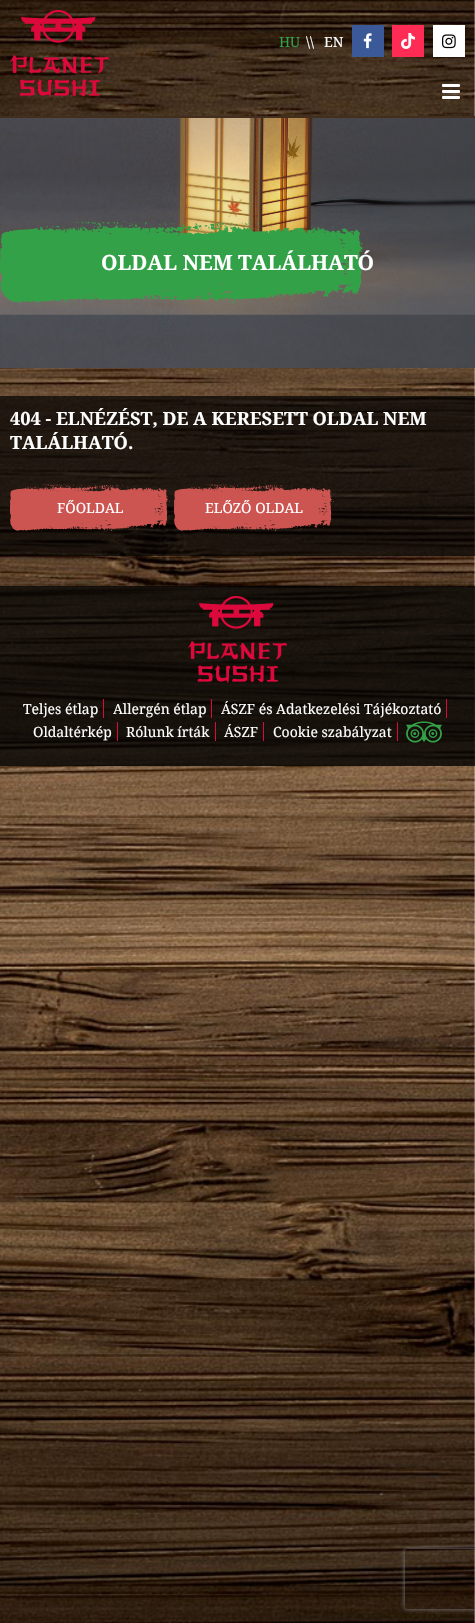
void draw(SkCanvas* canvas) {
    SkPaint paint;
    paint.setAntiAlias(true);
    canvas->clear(0xFFFFFFFF);
    canvas->drawImageRect(SkImages::DeferredFromEncodedData(SkData::MakeFromFileName("img1.png")), SkRect::MakeXYWH(0, 0, 475, 1623), SkSamplingOptions());
    canvas->drawImageRect(SkImages::DeferredFromEncodedData(SkData::MakeFromFileName("img2.png")), SkRect::MakeXYWH(10, 10, 99, 87), SkSamplingOptions());
    SkFont font1(fontMgr->matchFamilyStyle("Noto Serif", SkFontStyle::Normal()), 14);
    font1.setSubpixel(true);
    paint.setColor(0xFF33A147);
    canvas->drawString("HU", 279, 47, font1, paint);
    paint.setColor(0xFFFFFFFF);
    canvas->drawString("\\\\", 306, 47, font1, paint);
    canvas->drawString("EN", 324, 47, font1, paint);
    paint.setColor(0xFF3B5998);
    canvas->drawRect(SkRect::MakeXYWH(352, 25, 32, 32), paint);
    canvas->drawImageRect(SkImages::DeferredFromEncodedData(SkData::MakeFromFileName("img3.png")), SkRect::MakeXYWH(363, 33, 9, 16), SkSamplingOptions());
    paint.setColor(0xFFFE2C55);
    canvas->drawRect(SkRect::MakeXYWH(392, 25, 32, 32), paint);
    canvas->drawImageRect(SkImages::DeferredFromEncodedData(SkData::MakeFromFileName("img4.png")), SkRect::MakeXYWH(401, 33, 14, 16), SkSamplingOptions());
    paint.setColor(0xFFFFFFFF);
    canvas->drawRect(SkRect::MakeXYWH(433, 25, 32, 32), paint);
    canvas->drawImageRect(SkImages::DeferredFromEncodedData(SkData::MakeFromFileName("img5.png")), SkRect::MakeXYWH(442, 34, 14, 15), SkSamplingOptions());
    canvas->drawRoundRect(SkRect::MakeXYWH(442, 84, 18, 3), 1, 1, paint);
    canvas->drawRoundRect(SkRect::MakeXYWH(442, 90, 18, 3), 1, 1, paint);
    canvas->drawRoundRect(SkRect::MakeXYWH(442, 96, 18, 3), 1, 1, paint);
    paint.setColor(0xFF422F1E);
    canvas->drawRect(SkRect::MakeXYWH(0, 116, 475, 2), paint);
    canvas->drawImageRect(SkImages::DeferredFromEncodedData(SkData::MakeFromFileName("img6.png")), SkRect::MakeXYWH(0, 118, 475, 250), SkSamplingOptions());
    canvas->drawImageRect(SkImages::DeferredFromEncodedData(SkData::MakeFromFileName("img7.png")), SkRect::MakeXYWH(0, 221, 368, 82), SkSamplingOptions());
    SkFont font2(fontMgr->matchFamilyStyle("Noto Serif", SkFontStyle::Bold()), 21);
    font2.setSubpixel(true);
    paint.setColor(0xFFFFFFFF);
    canvas->drawString("OLDAL NEM TALÁLHATÓ", 101, 270, font2, paint);
    paint.setColor(0xB3000000);
    canvas->drawRect(SkRect::MakeXYWH(0, 396, 475, 160), paint);
    SkFont font3(fontMgr->matchFamilyStyle("Noto Serif", SkFontStyle::Bold()), 18.2f);
    font3.setSubpixel(true);
    paint.setColor(0xFFFFFFFF);
    canvas->drawString("404 - ELNÉZÉST, DE A KERESETT OLDAL NEM", 10, 425, font3, paint);
    canvas->drawString("TALÁLHATÓ.", 10, 449, font3, paint);
    canvas->drawImageRect(SkImages::DeferredFromEncodedData(SkData::MakeFromFileName("img8.png")), SkRect::MakeXYWH(10, 484, 160, 47), SkSamplingOptions());
    canvas->drawString("FŐOLDAL", 57, 513, font1, paint);
    canvas->drawImageRect(SkImages::DeferredFromEncodedData(SkData::MakeFromFileName("img9.png")), SkRect::MakeXYWH(174, 484, 160, 47), SkSamplingOptions());
    canvas->drawString("ELŐZŐ OLDAL", 205, 513, font1, paint);
    paint.setColor(0xCC000000);
    canvas->drawRect(SkRect::MakeXYWH(0, 586, 475, 180), paint);
    canvas->drawImageRect(SkImages::DeferredFromEncodedData(SkData::MakeFromFileName("img10.png")), SkRect::MakeXYWH(188, 596, 99, 87), SkSamplingOptions());
    paint.setColor(0xFFDD083B);
    canvas->drawRect(SkRect::MakeXYWH(103, 699, 1, 19), paint);
    paint.setColor(0xFFFFFFFF);
    canvas->drawString("Teljes étlap", 23, 714, font1, paint);
    paint.setColor(0xFFDD083B);
    canvas->drawRect(SkRect::MakeXYWH(211, 699, 1, 19), paint);
    paint.setColor(0xFFFFFFFF);
    canvas->drawString("Allergén étlap", 113, 714, font1, paint);
    paint.setColor(0xFFDD083B);
    canvas->drawRect(SkRect::MakeXYWH(446, 699, 1, 19), paint);
    paint.setColor(0xFFFFFFFF);
    canvas->drawString("ÁSZF és Adatkezelési Tájékoztató", 221, 714, font1, paint);
    paint.setColor(0xFFDD083B);
    canvas->drawRect(SkRect::MakeXYWH(117, 722, 1, 19), paint);
    paint.setColor(0xFFFFFFFF);
    canvas->drawString("Oldaltérkép", 33, 737, font1, paint);
    paint.setColor(0xFFDD083B);
    canvas->drawRect(SkRect::MakeXYWH(215, 722, 1, 19), paint);
    paint.setColor(0xFFFFFFFF);
    canvas->drawString("Rólunk írták", 126, 737, font1, paint);
    paint.setColor(0xFFDD083B);
    canvas->drawRect(SkRect::MakeXYWH(263, 722, 1, 19), paint);
    paint.setColor(0xFFFFFFFF);
    canvas->drawString("ÁSZF", 224, 737, font1, paint);
    paint.setColor(0xFFDD083B);
    canvas->drawRect(SkRect::MakeXYWH(397, 722, 1, 19), paint);
    paint.setColor(0xFFFFFFFF);
    canvas->drawString("Cookie szabályzat", 273, 737, font1, paint);
    canvas->drawImageRect(SkImages::DeferredFromEncodedData(SkData::MakeFromFileName("img11.png")), SkRect::MakeXYWH(406, 721, 36, 22), SkSamplingOptions());
    canvas->save();
    canvas->clipPath(SkPathBuilder(SkPathFillType::kEvenOdd).moveTo(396, 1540).lineTo(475, 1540).lineTo(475, 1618).lineTo(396, 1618).close().moveTo(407, 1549).lineTo(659, 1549).cubicTo(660, 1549, 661, 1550, 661, 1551).lineTo(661, 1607).cubicTo(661, 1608, 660, 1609, 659, 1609).lineTo(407, 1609).cubicTo(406, 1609, 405, 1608, 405, 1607).lineTo(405, 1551).cubicTo(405, 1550, 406, 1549, 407, 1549).close().detach(), true);
    paint.setColor(0xFF808080);
    paint.setMaskFilter(SkMaskFilter::MakeBlur(kNormal_SkBlurStyle, 2.5f));
    canvas->drawRoundRect(SkRect::MakeXYWH(405, 1549, 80, 60), 2, 2, paint);
    paint.setMaskFilter(nullptr);
    canvas->restore();
}
